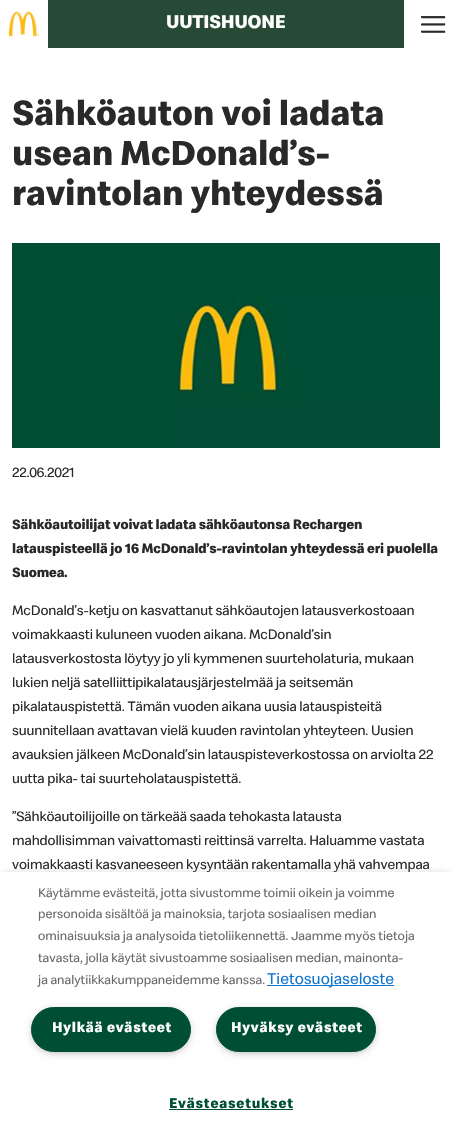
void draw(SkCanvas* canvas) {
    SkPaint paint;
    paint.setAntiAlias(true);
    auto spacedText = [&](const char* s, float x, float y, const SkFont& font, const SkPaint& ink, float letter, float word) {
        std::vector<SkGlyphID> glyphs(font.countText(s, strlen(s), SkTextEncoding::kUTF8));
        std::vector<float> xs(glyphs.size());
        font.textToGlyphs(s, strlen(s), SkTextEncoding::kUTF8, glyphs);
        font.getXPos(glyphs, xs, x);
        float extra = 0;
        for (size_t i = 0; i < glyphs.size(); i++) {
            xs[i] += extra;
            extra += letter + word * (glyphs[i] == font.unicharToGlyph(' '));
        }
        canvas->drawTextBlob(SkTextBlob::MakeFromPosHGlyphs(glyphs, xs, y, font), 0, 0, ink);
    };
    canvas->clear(0xFFFFFFFF);
    paint.setColor(0xFF264A36);
    canvas->drawRect(SkRect::MakeXYWH(48, 0, 356, 48), paint);
    canvas->drawImageRect(SkImages::DeferredFromEncodedData(SkData::MakeFromFileName("img1.png")), SkRect::MakeXYWH(0, 0, 48, 48), SkSamplingOptions());
    SkFont font1(fontMgr->matchFamilyStyle("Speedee", SkFontStyle::Bold()), 19);
    font1.setSubpixel(true);
    paint.setColor(0xFFFFFFFF);
    spacedText("UUTISHUONE", 166, 28, font1, paint, -0.25f, 0);
    canvas->drawImageRect(SkImages::DeferredFromEncodedData(SkData::MakeFromFileName("img2.png")), SkRect::MakeXYWH(421, 16, 25, 17), SkSamplingOptions());
    SkFont font2(fontMgr->matchFamilyStyle("Speedee", SkFontStyle::Bold()), 36);
    font2.setSubpixel(true);
    paint.setColor(0xFF292929);
    spacedText("Sähköauton voi ladata", 12, 125, font2, paint, -0.1f, 0);
    spacedText("usean McDonald’s-", 12, 165, font2, paint, -0.1f, 0);
    spacedText("ravintolan yhteydessä", 12, 205, font2, paint, -0.1f, 0);
    canvas->drawImageRect(SkImages::DeferredFromEncodedData(SkData::MakeFromFileName("img3.png")), SkRect::MakeXYWH(12, 243, 428, 205), SkSamplingOptions());
    SkFont font3(fontMgr->matchFamilyStyle("Speedee", SkFontStyle::Normal()), 14);
    font3.setSubpixel(true);
    spacedText("22.06.2021", 12, 477, font3, paint, -0.25f, 0);
    SkFont font4(fontMgr->matchFamilyStyle("Speedee", SkFontStyle::Bold()), 14);
    font4.setSubpixel(true);
    spacedText("Sähköautoilijat voivat ladata sähköautonsa Rechargen", 12, 529, font4, paint, -0.13f, 0);
    spacedText("latauspisteellä jo 16 McDonald’s-ravintolan yhteydessä eri puolella", 12, 553, font4, paint, -0.13f, 0);
    spacedText("Suomea.", 12, 577, font4, paint, -0.13f, 0);
    spacedText("McDonald’s-ketju on kasvattanut sähköautojen latausverkostoaan", 12, 615, font3, paint, -0.13f, 0);
    spacedText("voimakkaasti kuluneen vuoden aikana. McDonald’sin", 12, 639, font3, paint, -0.13f, 0);
    spacedText("latausverkostosta löytyy jo yli kymmenen suurteholaturia, mukaan", 12, 663, font3, paint, -0.13f, 0);
    spacedText("lukien neljä satelliittipikalatausjärjestelmää ja seitsemän", 12, 687, font3, paint, -0.13f, 0);
    spacedText("pikalatauspistettä. Tämän vuoden aikana uusia latauspisteitä", 12, 711, font3, paint, -0.13f, 0);
    spacedText("suunnitellaan avattavan vielä kuuden ravintolan yhteyteen. Uusien", 12, 735, font3, paint, -0.13f, 0);
    spacedText("avauksien jälkeen McDonald’sin latauspisteverkostossa on arviolta 22", 12, 759, font3, paint, -0.13f, 0);
    spacedText("uutta pika- tai suurteholatauspistettä.", 12, 783, font3, paint, -0.13f, 0);
    spacedText("”Sähköautoilijoille on tärkeää saada tehokasta latausta", 12, 821, font3, paint, -0.13f, 0);
    spacedText("mahdollisimman vaivattomasti reittinsä varrelta. Haluamme vastata", 12, 845, font3, paint, -0.13f, 0);
    spacedText("voimakkaasti kasvaneeseen kysyntään rakentamalla yhä vahvempaa", 12, 869, font3, paint, -0.13f, 0);
    paint.setColor(0xFF999999);
    paint.setMaskFilter(SkMaskFilter::MakeBlur(kNormal_SkBlurStyle, 5));
    canvas->drawRect(SkRect::MakeXYWH(3, 877, 446, 265), paint);
    paint.setMaskFilter(nullptr);
    paint.setColor(0xFFFFFFFF);
    canvas->drawRect(SkRect::MakeXYWH(0, 872, 452, 271), paint);
    SkFont font5(fontMgr->matchFamilyStyle("Speedee", SkFontStyle::Normal()), 12.8f);
    font5.setSubpixel(true);
    paint.setColor(0xFF696969);
    canvas->drawString("Käytämme evästeitä, jotta sivustomme toimii oikein ja voimme", 38, 897, font5, paint);
    canvas->drawString("personoida sisältöä ja mainoksia, tarjota sosiaalisen median", 38, 918, font5, paint);
    canvas->drawString("ominaisuuksia ja analysoida tietoliikennettä. Jaamme myös tietoja", 38, 940, font5, paint);
    canvas->drawString("tavasta, jolla käytät sivustoamme sosiaalisen median, mainonta-", 38, 962, font5, paint);
    canvas->drawString("ja analytiikkakumppaneidemme kanssa.", 38, 984, font5, paint);
    paint.setColor(0xFF1276CE);
    canvas->drawRect(SkRect::MakeXYWH(267, 985, 127, 1), paint);
    SkFont font6(fontMgr->matchFamilyStyle("Speedee", SkFontStyle::Normal()), 16);
    font6.setSubpixel(true);
    canvas->drawString("Tietosuojaseloste", 267, 984, font6, paint);
    paint.setColor(0xFF999999);
    paint.setMaskFilter(SkMaskFilter::MakeBlur(kNormal_SkBlurStyle, 5));
    canvas->drawRoundRect(SkRect::MakeXYWH(34, 1012, 154, 39), 19.5f, 19.5f, paint);
    paint.setMaskFilter(nullptr);
    paint.setColor(0xFF004E34);
    canvas->drawRoundRect(SkRect::MakeXYWH(31.5f, 1007.5f, 159, 44), 22, 22, paint);
    paint.setStyle(SkPaint::kStroke_Style);
    paint.setStrokeWidth(1);
    canvas->drawRoundRect(SkRect::MakeXYWH(31.5f, 1007.5f, 159, 44), 22, 22, paint);
    SkFont font7(fontMgr->matchFamilyStyle("Speedee", SkFontStyle::Bold()), 14.5f);
    font7.setSubpixel(true);
    paint.setStyle(SkPaint::kFill_Style);
    paint.setColor(0xFFFFFFFF);
    spacedText("Hylkää evästeet", 52, 1032, font7, paint, 0.75f, 0);
    paint.setColor(0xFF999999);
    paint.setMaskFilter(SkMaskFilter::MakeBlur(kNormal_SkBlurStyle, 5));
    canvas->drawRoundRect(SkRect::MakeXYWH(219, 1012, 154, 39), 19.5f, 19.5f, paint);
    paint.setMaskFilter(nullptr);
    paint.setColor(0xFF004E34);
    canvas->drawRoundRect(SkRect::MakeXYWH(216.5f, 1007.5f, 159, 44), 22, 22, paint);
    paint.setStyle(SkPaint::kStroke_Style);
    canvas->drawRoundRect(SkRect::MakeXYWH(216.5f, 1007.5f, 159, 44), 22, 22, paint);
    paint.setStyle(SkPaint::kFill_Style);
    paint.setColor(0xFFFFFFFF);
    spacedText("Hyväksy evästeet", 231, 1032, font7, paint, 0.75f, 0);
    paint.setColor(0xFF004E34);
    spacedText("Evästeasetukset", 169, 1108, font7, paint, 0.75f, 0);
    canvas->drawRect(SkRect::MakeXYWH(169, 1109, 124, 1), paint);
}
